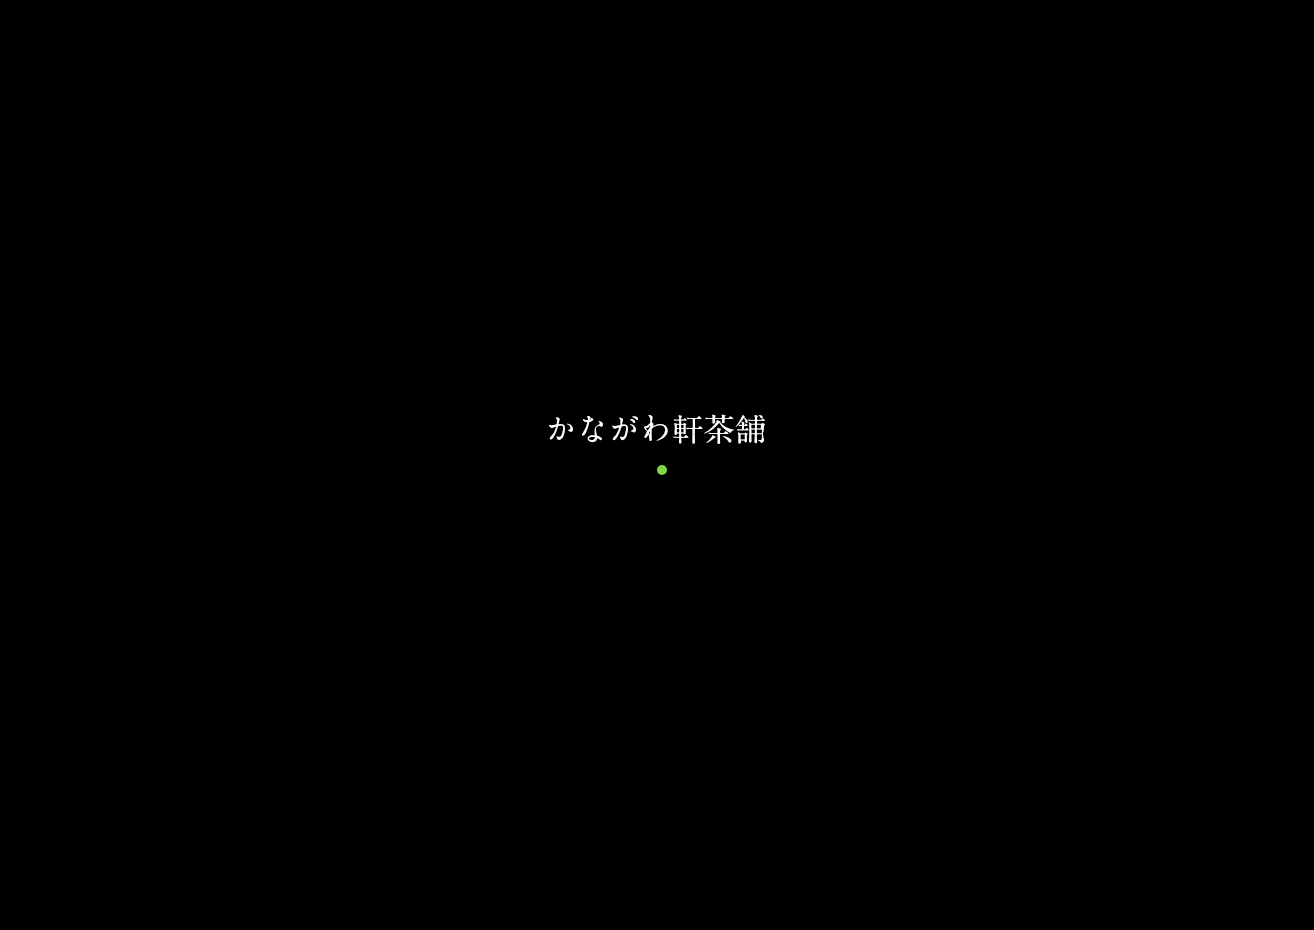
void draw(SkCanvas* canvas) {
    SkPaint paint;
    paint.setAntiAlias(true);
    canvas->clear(0xFF000000);
    canvas->drawImageRect(SkImages::DeferredFromEncodedData(SkData::MakeFromFileName("img1.png")), SkRect::MakeXYWH(548, 412, 222, 38), SkSamplingOptions());
    paint.setColor(0xFF81D644);
    canvas->drawCircle(662, 470, 5, paint);
}
